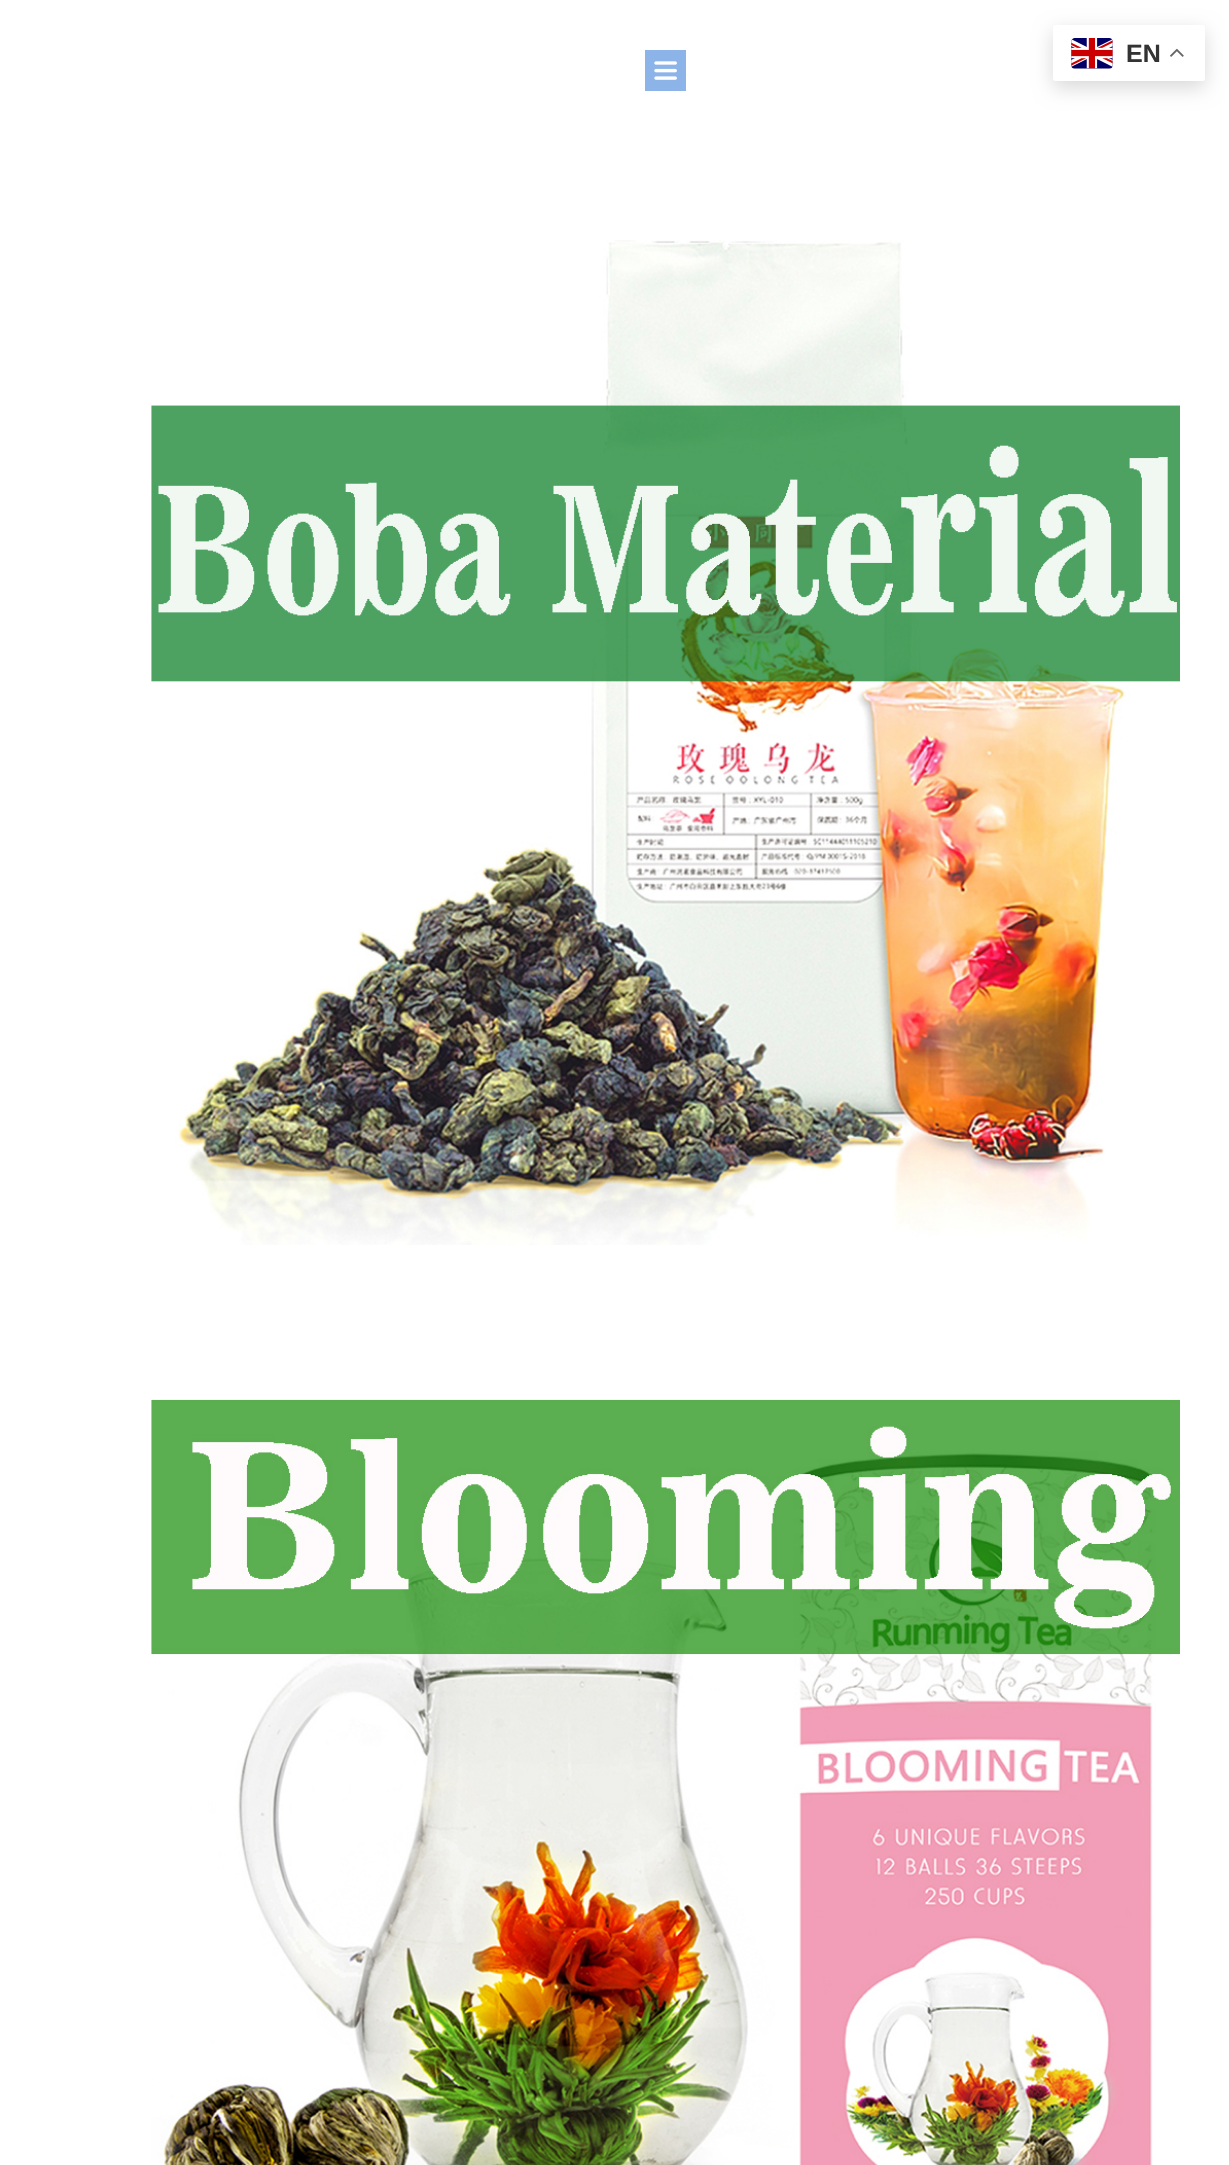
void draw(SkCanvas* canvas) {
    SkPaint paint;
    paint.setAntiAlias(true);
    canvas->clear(0xFFFFFFFF);
    paint.setColor(0x26000000);
    paint.setMaskFilter(SkMaskFilter::MakeBlur(kNormal_SkBlurStyle, 9.5f));
    canvas->drawRoundRect(SkRect::MakeXYWH(1053, 31, 152, 57), 2.5f, 2.5f, paint);
    paint.setMaskFilter(nullptr);
    paint.setColor(0xFFFFFFFF);
    canvas->drawRoundRect(SkRect::MakeXYWH(1053, 25, 152, 56), 2.5f, 2.5f, paint);
    canvas->drawImageRect(SkImages::DeferredFromEncodedData(SkData::MakeFromFileName("img1.png")), SkRect::MakeXYWH(1071, 38, 42, 31), SkSamplingOptions());
    SkFont font1(fontMgr->matchFamilyStyle("Liberation Sans", SkFontStyle::Bold()), 25);
    font1.setSubpixel(true);
    paint.setColor(0xFF333333);
    canvas->drawString("EN", 1126, 62, font1, paint);
    canvas->drawImageRect(SkImages::DeferredFromEncodedData(SkData::MakeFromFileName("img2.png")), SkRect::MakeXYWH(1170, 48, 14, 9), SkSamplingOptions());
    canvas->drawImageRect(SkImages::DeferredFromEncodedData(SkData::MakeFromFileName("img3.png")), SkRect::MakeXYWH(645, 50, 41, 41), SkSamplingOptions());
    canvas->drawImageRect(SkImages::DeferredFromEncodedData(SkData::MakeFromFileName("img4.png")), SkRect::MakeXYWH(151, 240, 1029, 1005), SkSamplingOptions());
    canvas->drawImageRect(SkImages::DeferredFromEncodedData(SkData::MakeFromFileName("img5.png")), SkRect::MakeXYWH(151, 1399, 1029, 766), SkSamplingOptions());
}
